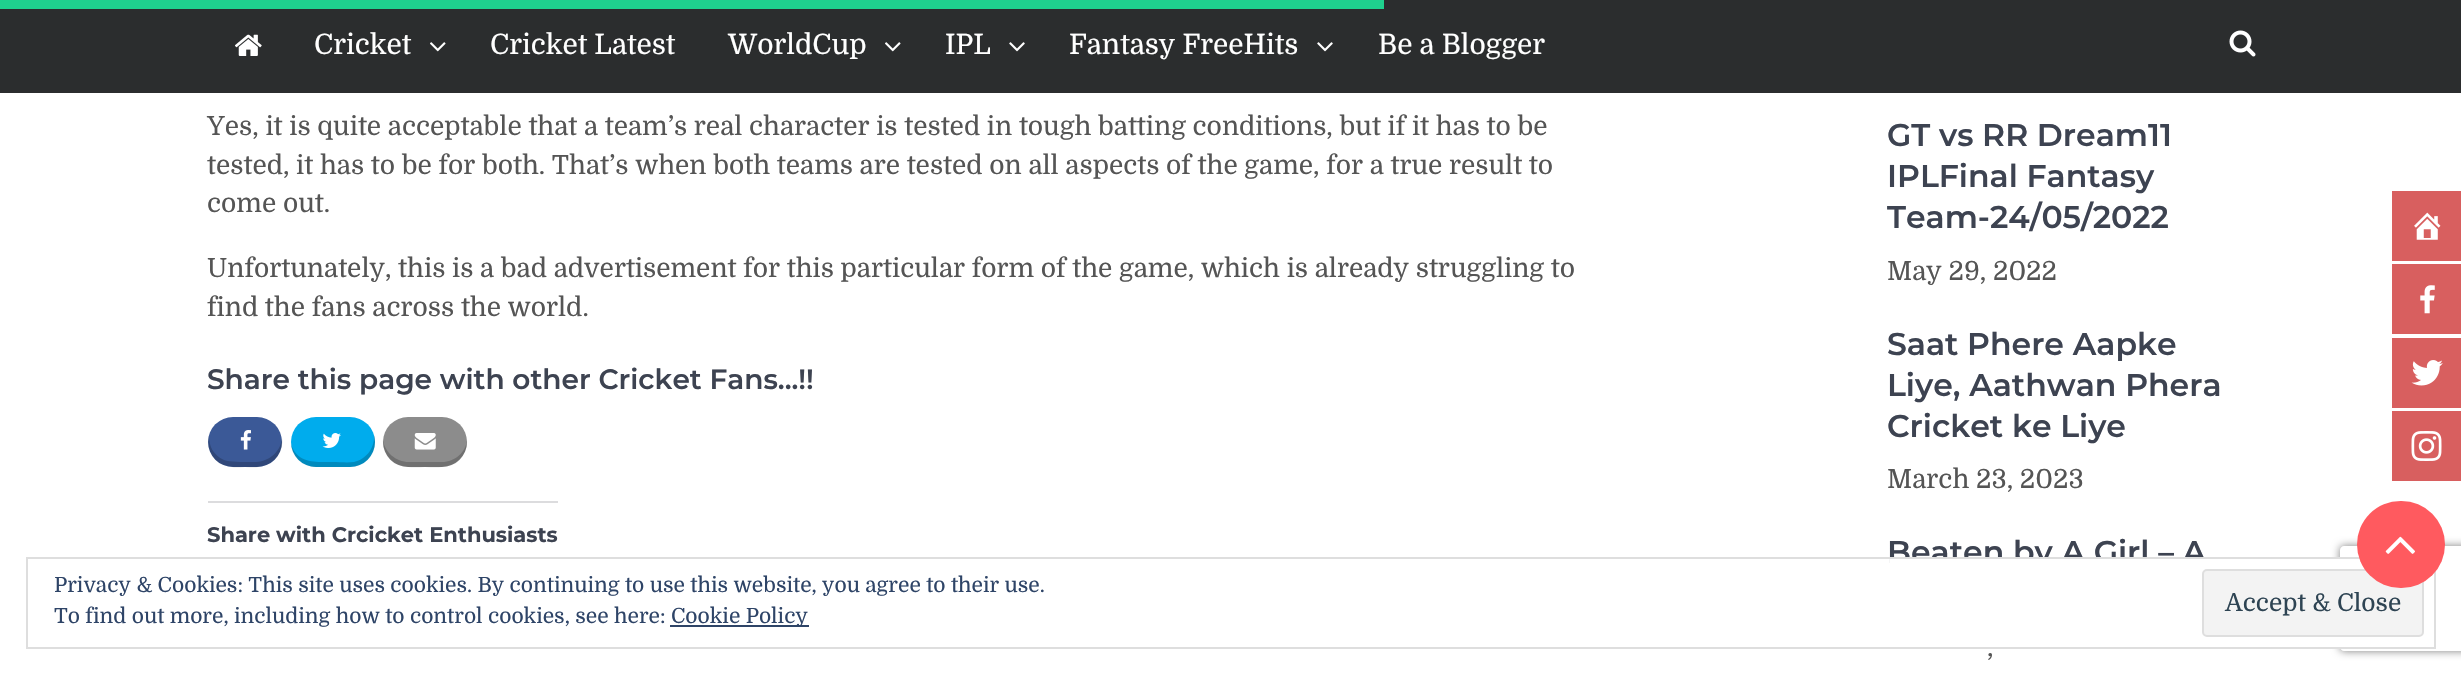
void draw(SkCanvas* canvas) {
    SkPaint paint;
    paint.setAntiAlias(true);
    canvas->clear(0xFFFFFFFF);
    paint.setColor(0xFF2B2D2E);
    canvas->drawRect(SkRect::MakeXYWH(0, 0, 2461, 93), paint);
    paint.setColor(0xFF1FD18E);
    canvas->drawRect(SkRect::MakeXYWH(0, 0, 1384, 9), paint);
    canvas->drawImageRect(SkImages::DeferredFromEncodedData(SkData::MakeFromFileName("img1.png")), SkRect::MakeXYWH(235, 34, 27, 22), SkSamplingOptions());
    SkFont font1(fontMgr->matchFamilyStyle("Domine", SkFontStyle::Normal()), 28);
    font1.setSubpixel(true);
    paint.setColor(0xFFFFFFFF);
    canvas->drawString("Cricket", 314, 54, font1, paint);
    canvas->drawImageRect(SkImages::DeferredFromEncodedData(SkData::MakeFromFileName("img2.png")), SkRect::MakeXYWH(430, 42, 16, 10), SkSamplingOptions());
    canvas->drawString("Cricket Latest", 490, 54, font1, paint);
    canvas->drawString("WorldCup", 728, 54, font1, paint);
    canvas->drawImageRect(SkImages::DeferredFromEncodedData(SkData::MakeFromFileName("img2.png")), SkRect::MakeXYWH(885, 42, 16, 10), SkSamplingOptions());
    canvas->drawString("IPL", 945, 54, font1, paint);
    canvas->drawImageRect(SkImages::DeferredFromEncodedData(SkData::MakeFromFileName("img3.png")), SkRect::MakeXYWH(1009, 42, 16, 10), SkSamplingOptions());
    canvas->drawString("Fantasy FreeHits", 1069, 54, font1, paint);
    canvas->drawImageRect(SkImages::DeferredFromEncodedData(SkData::MakeFromFileName("img3.png")), SkRect::MakeXYWH(1317, 42, 16, 10), SkSamplingOptions());
    canvas->drawString("Be a Blogger", 1378, 54, font1, paint);
    canvas->drawImageRect(SkImages::DeferredFromEncodedData(SkData::MakeFromFileName("img4.png")), SkRect::MakeXYWH(2229, 30, 27, 27), SkSamplingOptions());
    SkFont font2(fontMgr->matchFamilyStyle("Domine", SkFontStyle::Normal()), 26.25f);
    font2.setSubpixel(true);
    paint.setColor(0xFF555555);
    canvas->drawString("Yes, it is quite acceptable that a team’s real character is tested in tough batting conditions, but if it has to be", 207, 135, font2, paint);
    canvas->drawString("tested, it has to be for both. That’s when both teams are tested on all aspects of the game, for a true result to", 207, 174, font2, paint);
    canvas->drawString("come out.", 207, 212, font2, paint);
    canvas->drawString("Unfortunately, this is a bad advertisement for this particular form of the game, which is already struggling to", 207, 277, font2, paint);
    canvas->drawString("find the fans across the world.", 207, 316, font2, paint);
    SkFont font3(fontMgr->matchFamilyStyle("Montserrat", SkFontStyle(600, SkFontStyle::kNormal_Width, SkFontStyle::kUpright_Slant)), 28);
    font3.setSubpixel(true);
    paint.setColor(0xFF3D4351);
    canvas->drawString("Share this page with other Cricket Fans...!!", 207, 389, font3, paint);
    paint.setColor(0xFF3B5997);
    canvas->drawRoundRect(SkRect::MakeXYWH(208, 417, 74, 50), 25, 25, paint);
    paint.setColor(0x33000000);
    canvas->drawPath(SkPathBuilder().moveTo(209, 436).cubicTo(206, 450, 214, 464, 228, 466).cubicTo(233, 468, 239, 467, 245, 467).cubicTo(251, 467, 257, 468, 262, 466).cubicTo(275, 464, 284, 451, 282, 438).cubicTo(281, 450, 271, 461, 256, 462).lineTo(251, 462).cubicTo(242, 462, 230, 462, 224, 460).cubicTo(213, 455, 209, 446, 209, 436).close().detach(), paint);
    canvas->drawImageRect(SkImages::DeferredFromEncodedData(SkData::MakeFromFileName("img5.png")), SkRect::MakeXYWH(240, 430, 11, 20), SkSamplingOptions());
    paint.setColor(0xFF00ACED);
    canvas->drawRoundRect(SkRect::MakeXYWH(291, 417, 84, 50), 25, 25, paint);
    paint.setColor(0x33000000);
    canvas->drawPath(SkPathBuilder().moveTo(291, 444).cubicTo(292, 457, 303, 467, 316, 467).lineTo(350, 467).cubicTo(364, 467, 375, 456, 375, 442).cubicTo(375, 439, 375, 437, 374, 435).cubicTo(375, 447, 367, 459, 354, 462).cubicTo(347, 463, 340, 462, 332, 462).cubicTo(316, 462, 297, 464, 291, 444).close().detach(), paint);
    canvas->drawImageRect(SkImages::DeferredFromEncodedData(SkData::MakeFromFileName("img6.png")), SkRect::MakeXYWH(322, 433, 19, 15), SkSamplingOptions());
    paint.setColor(0xFF8C8C8C);
    canvas->drawRoundRect(SkRect::MakeXYWH(383, 417, 84, 50), 25, 25, paint);
    paint.setColor(0x33000000);
    canvas->drawPath(SkPathBuilder().moveTo(383, 439).cubicTo(382, 452, 391, 464, 403, 466).cubicTo(410, 468, 418, 467, 425, 467).cubicTo(432, 467, 440, 468, 447, 466).cubicTo(459, 464, 468, 452, 467, 440).cubicTo(466, 452, 455, 462, 442, 462).lineTo(409, 462).cubicTo(396, 462, 384, 452, 383, 439).close().detach(), paint);
    canvas->drawImageRect(SkImages::DeferredFromEncodedData(SkData::MakeFromFileName("img7.png")), SkRect::MakeXYWH(414, 433, 22, 17), SkSamplingOptions());
    paint.setColor(0xFFDCDCDE);
    canvas->drawRect(SkRect::MakeXYWH(208, 501, 350, 2), paint);
    SkFont font4(fontMgr->matchFamilyStyle("Montserrat", SkFontStyle::Bold()), 21);
    font4.setSubpixel(true);
    paint.setColor(0xFF3D4351);
    canvas->drawString("Share with Crcicket Enthusiasts", 207, 542, font4, paint);
    SkFont font5(fontMgr->matchFamilyStyle("Montserrat", SkFontStyle(600, SkFontStyle::kNormal_Width, SkFontStyle::kUpright_Slant)), 31.5f);
    font5.setSubpixel(true);
    canvas->drawString("GT vs RR Dream11", 1887, 146, font5, paint);
    canvas->drawString("IPLFinal Fantasy", 1887, 187, font5, paint);
    canvas->drawString("Team-24/05/2022", 1887, 228, font5, paint);
    paint.setColor(0xFF555555);
    canvas->drawString("May 29, 2022", 1887, 280, font2, paint);
    paint.setColor(0xFF3D4351);
    canvas->drawString("Saat Phere Aapke", 1887, 355, font5, paint);
    canvas->drawString("Liye, Aathwan Phera", 1887, 396, font5, paint);
    canvas->drawString("Cricket ke Liye", 1887, 437, font5, paint);
    paint.setColor(0xFF555555);
    canvas->drawString("March 23, 2023", 1887, 488, font2, paint);
    paint.setColor(0xFF3D4351);
    canvas->drawString("Beaten by A Girl – A", 1887, 563, font5, paint);
    paint.setColor(0xFF555555);
    canvas->drawString(",", 1987, 656, font2, paint);
    paint.setColor(0xFFD85F5F);
    canvas->drawRect(SkRect::MakeXYWH(2392, 191, 69, 70), paint);
    canvas->drawImageRect(SkImages::DeferredFromEncodedData(SkData::MakeFromFileName("img8.png")), SkRect::MakeXYWH(2414, 212, 27, 28), SkSamplingOptions());
    canvas->drawRect(SkRect::MakeXYWH(2392, 264, 69, 70), paint);
    canvas->drawImageRect(SkImages::DeferredFromEncodedData(SkData::MakeFromFileName("img9.png")), SkRect::MakeXYWH(2420, 285, 15, 29), SkSamplingOptions());
    canvas->drawRect(SkRect::MakeXYWH(2392, 338, 69, 70), paint);
    canvas->drawImageRect(SkImages::DeferredFromEncodedData(SkData::MakeFromFileName("img10.png")), SkRect::MakeXYWH(2411, 360, 32, 26), SkSamplingOptions());
    canvas->drawRect(SkRect::MakeXYWH(2392, 411, 69, 70), paint);
    canvas->drawImageRect(SkImages::DeferredFromEncodedData(SkData::MakeFromFileName("img11.png")), SkRect::MakeXYWH(2411, 431, 31, 30), SkSamplingOptions());
    canvas->save();
    canvas->clipPath(SkPathBuilder(SkPathFillType::kEvenOdd).moveTo(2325, 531).lineTo(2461, 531).lineTo(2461, 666).lineTo(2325, 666).close().moveTo(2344, 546).lineTo(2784, 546).cubicTo(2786, 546, 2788, 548, 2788, 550).lineTo(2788, 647).cubicTo(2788, 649, 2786, 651, 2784, 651).lineTo(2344, 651).cubicTo(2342, 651, 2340, 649, 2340, 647).lineTo(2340, 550).cubicTo(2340, 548, 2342, 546, 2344, 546).close().detach(), true);
    paint.setColor(0xFF808080);
    paint.setMaskFilter(SkMaskFilter::MakeBlur(kNormal_SkBlurStyle, 4.5f));
    canvas->drawRoundRect(SkRect::MakeXYWH(2340, 546, 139, 105), 4, 4, paint);
    paint.setMaskFilter(nullptr);
    canvas->restore();
    paint.setColor(0xFFFFFFFF);
    canvas->drawRect(SkRect::MakeXYWH(1890, 559, 450, 88), paint);
    paint.setStyle(SkPaint::kStroke_Style);
    paint.setStrokeWidth(2);
    paint.setColor(0xFFDEDEDE);
    canvas->drawRect(SkRect::MakeXYWH(27, 558, 2408, 90), paint);
    paint.setStyle(SkPaint::kFill_Style);
    paint.setColor(0xFFF3F3F3);
    canvas->drawRoundRect(SkRect::MakeXYWH(2203, 570, 220, 66), 4, 4, paint);
    paint.setStyle(SkPaint::kStroke_Style);
    paint.setColor(0xFFDEDEDE);
    canvas->drawRoundRect(SkRect::MakeXYWH(2203, 570, 220, 66), 4, 4, paint);
    paint.setStyle(SkPaint::kFill_Style);
    paint.setColor(0xFFFF5A5F);
    canvas->drawRoundRect(SkRect::MakeXYWH(2357, 501, 88, 87), 43.5f, 43.5f, paint);
    canvas->drawImageRect(SkImages::DeferredFromEncodedData(SkData::MakeFromFileName("img12.png")), SkRect::MakeXYWH(2385, 536, 30, 18), SkSamplingOptions());
    SkFont font6(fontMgr->matchFamilyStyle("Domine", SkFontStyle::Normal()), 21);
    font6.setSubpixel(true);
    paint.setColor(0xFF2E4467);
    canvas->drawString("Privacy & Cookies: This site uses cookies. By continuing to use this website, you agree to their use.", 54, 592, font6, paint);
    canvas->drawString("To find out more, including how to control cookies, see here:", 54, 623, font6, paint);
    canvas->drawRect(SkRect::MakeXYWH(670, 625, 139, 2), paint);
    canvas->drawString("Cookie Policy", 671, 623, font6, paint);
    SkFont font7(fontMgr->matchFamilyStyle("Domine", SkFontStyle::Normal()), 24.5f);
    font7.setSubpixel(true);
    paint.setColor(0xFF2E4453);
    canvas->drawString("Accept & Close", 2225, 611, font7, paint);
}
